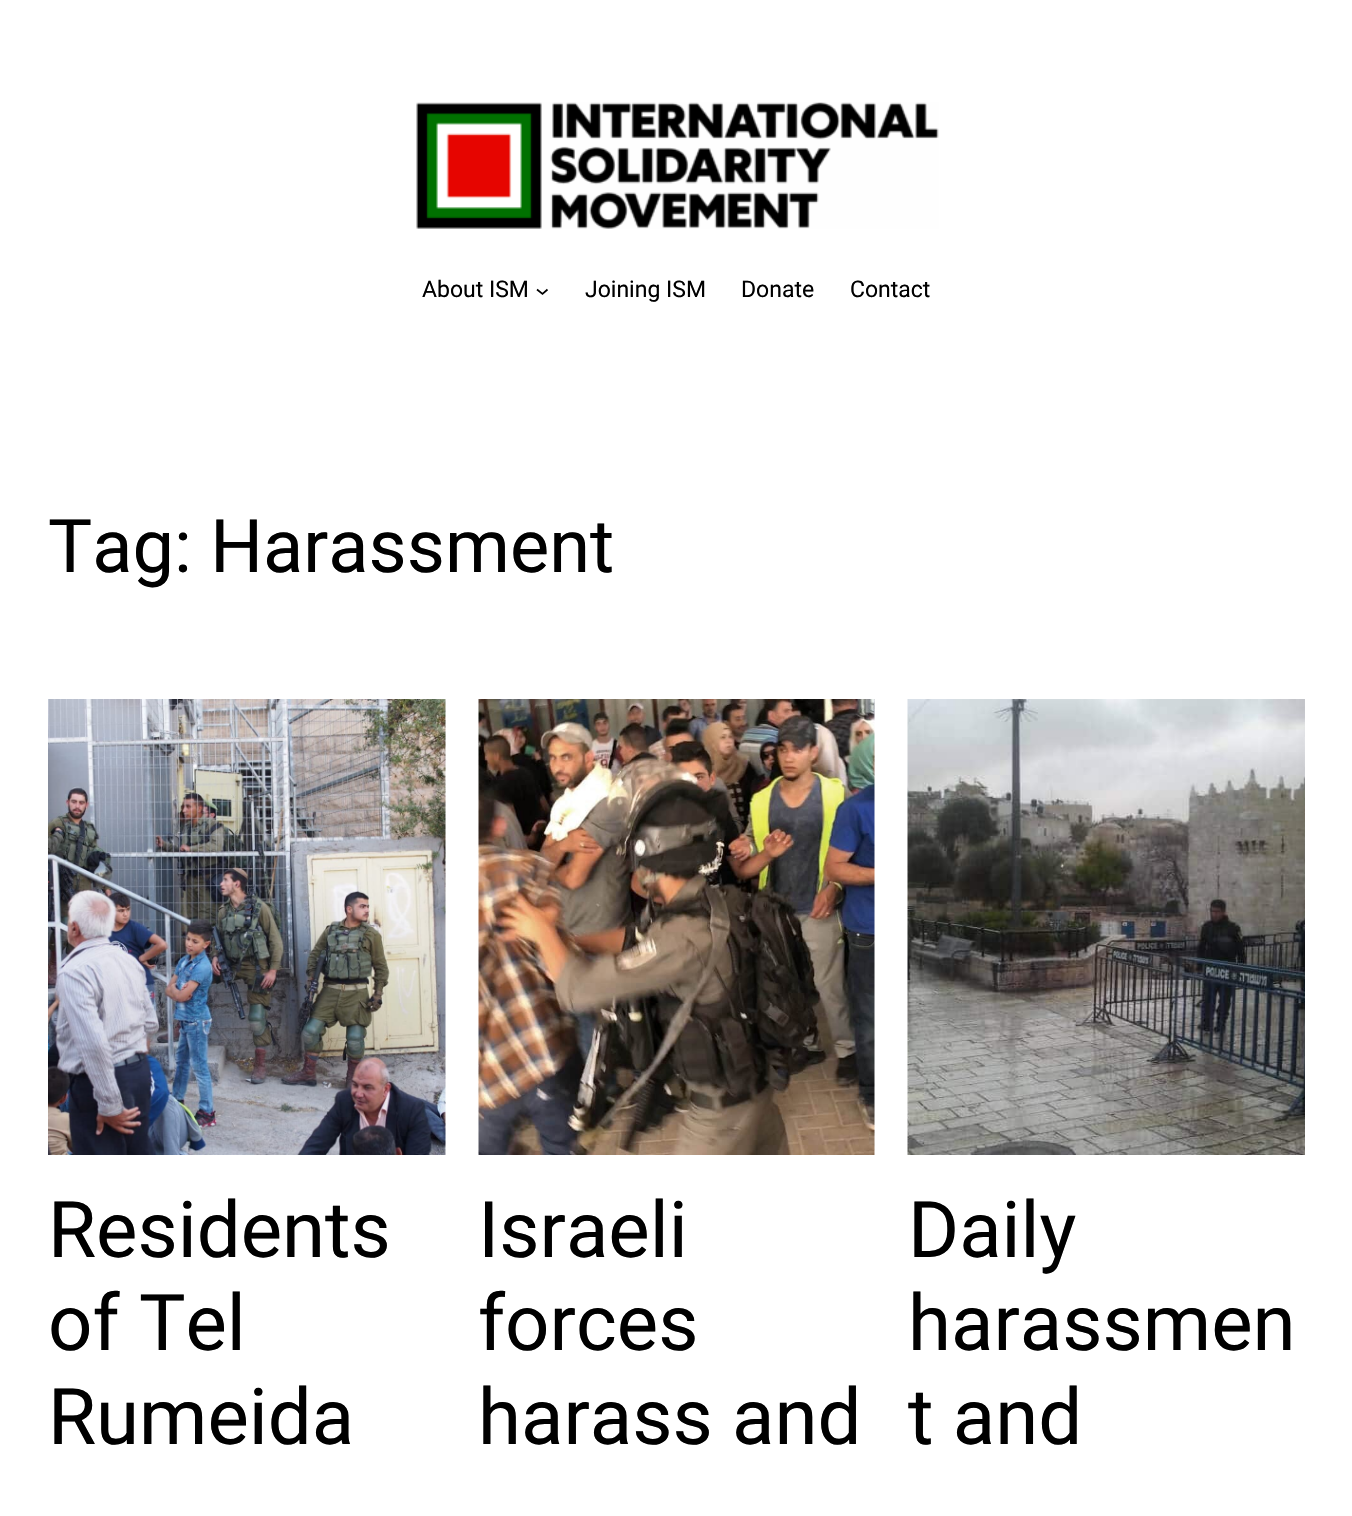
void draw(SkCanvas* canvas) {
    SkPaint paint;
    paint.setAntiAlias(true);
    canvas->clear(0xFFFFFFFF);
    canvas->drawImageRect(SkImages::DeferredFromEncodedData(SkData::MakeFromFileName("img1.png")), SkRect::MakeXYWH(416, 102, 523, 127), SkSamplingOptions());
    SkFont font1(fontMgr->matchFamilyStyle("Roboto", SkFontStyle::Normal()), 23);
    font1.setSubpixel(true);
    paint.setColor(0xFF000000);
    canvas->drawString("About ISM", 422, 297, font1, paint);
    paint.setStyle(SkPaint::kStroke_Style);
    paint.setStrokeWidth(1.7f);
    canvas->drawPath(SkPathBuilder().moveTo(537, 289.5f).lineTo(542.5f, 294).lineTo(547.5f, 289.5f).detach(), paint);
    paint.setStyle(SkPaint::kFill_Style);
    canvas->drawString("Joining ISM", 585, 297, font1, paint);
    canvas->drawString("Donate", 741, 297, font1, paint);
    canvas->drawString("Contact", 850, 297, font1, paint);
    SkFont font2(fontMgr->matchFamilyStyle("Roboto", SkFontStyle::Normal()), 74);
    font2.setSubpixel(true);
    canvas->drawString("Tag: Harassment", 48, 572, font2, paint);
    canvas->drawImageRect(SkImages::DeferredFromEncodedData(SkData::MakeFromFileName("img2.png")), SkRect::MakeXYWH(48, 699, 398, 456), SkSamplingOptions());
    SkFont font3(fontMgr->matchFamilyStyle("Roboto", SkFontStyle::Normal()), 78);
    font3.setSubpixel(true);
    canvas->drawString("Residents", 48, 1257, font3, paint);
    canvas->drawString("of Tel", 48, 1350, font3, paint);
    canvas->drawString("Rumeida", 48, 1444, font3, paint);
    canvas->drawImageRect(SkImages::DeferredFromEncodedData(SkData::MakeFromFileName("img3.png")), SkRect::MakeXYWH(478, 699, 397, 456), SkSamplingOptions());
    canvas->drawString("Israeli", 478, 1257, font3, paint);
    canvas->drawString("forces", 478, 1350, font3, paint);
    canvas->drawString("harass and", 478, 1444, font3, paint);
    canvas->drawImageRect(SkImages::DeferredFromEncodedData(SkData::MakeFromFileName("img4.png")), SkRect::MakeXYWH(907, 699, 398, 456), SkSamplingOptions());
    canvas->drawString("Daily", 908, 1257, font3, paint);
    canvas->drawString("harassmen", 908, 1350, font3, paint);
    canvas->drawString("t and", 908, 1444, font3, paint);
}
